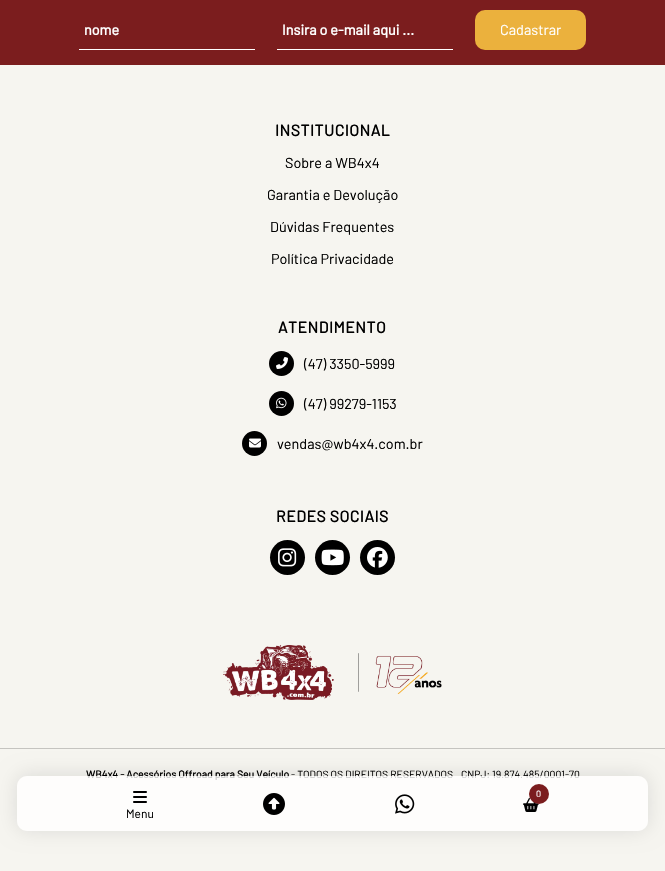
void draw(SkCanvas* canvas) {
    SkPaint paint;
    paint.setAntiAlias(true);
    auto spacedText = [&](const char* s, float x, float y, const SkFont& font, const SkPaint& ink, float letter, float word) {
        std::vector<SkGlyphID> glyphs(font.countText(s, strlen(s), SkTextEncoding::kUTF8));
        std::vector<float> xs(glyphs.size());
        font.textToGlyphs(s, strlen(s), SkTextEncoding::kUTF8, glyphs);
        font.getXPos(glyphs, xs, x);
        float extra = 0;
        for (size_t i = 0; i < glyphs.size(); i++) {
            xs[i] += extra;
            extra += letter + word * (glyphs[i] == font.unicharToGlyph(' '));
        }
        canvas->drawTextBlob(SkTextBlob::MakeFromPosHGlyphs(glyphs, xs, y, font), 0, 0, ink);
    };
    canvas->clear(0xFF7B1D1E);
    paint.setColor(0xFFFFFFFF);
    canvas->drawRect(SkRect::MakeXYWH(79, 49, 176, 1), paint);
    SkFont font1(fontMgr->matchFamilyStyle("Barlow", SkFontStyle::Bold()), 14.4f);
    font1.setSubpixel(true);
    canvas->drawString("nome", 84, 35, font1, paint);
    canvas->drawRect(SkRect::MakeXYWH(277, 49, 176, 1), paint);
    canvas->drawString("Insira o e-mail aqui ...", 282, 35, font1, paint);
    paint.setColor(0xFFEBB13D);
    canvas->drawRoundRect(SkRect::MakeXYWH(475, 10, 111, 40), 10, 10, paint);
    SkFont font2(fontMgr->matchFamilyStyle("Barlow", SkFontStyle::Normal()), 14.4f);
    font2.setSubpixel(true);
    paint.setColor(0xFFFFFFFF);
    canvas->drawString("Cadastrar", 500, 35, font2, paint);
    paint.setColor(0xFFF6F5F0);
    canvas->drawRect(SkRect::MakeXYWH(0, 65, 665, 806), paint);
    SkFont font3(fontMgr->matchFamilyStyle("Barlow", SkFontStyle::Bold()), 15.75f);
    font3.setSubpixel(true);
    paint.setColor(0xFF000000);
    spacedText("INSTITUCIONAL", 275, 136, font3, paint, 0.5f, 0);
    canvas->drawString("Sobre a WB4x4", 285, 168, font2, paint);
    canvas->drawString("Garantia e Devolução", 267, 200, font2, paint);
    canvas->drawString("Dúvidas Frequentes", 270, 232, font2, paint);
    canvas->drawString("Política Privacidade", 271, 264, font2, paint);
    spacedText("ATENDIMENTO", 278, 333, font3, paint, 0.5f, 0);
    canvas->drawCircle(281.5f, 363.5f, 12.5f, paint);
    canvas->drawImageRect(SkImages::DeferredFromEncodedData(SkData::MakeFromFileName("img1.png")), SkRect::MakeXYWH(276, 357, 12, 12), SkSamplingOptions());
    canvas->drawString("(47) 3350-5999", 304, 369, font2, paint);
    canvas->drawCircle(281.5f, 403.5f, 12.5f, paint);
    canvas->drawImageRect(SkImages::DeferredFromEncodedData(SkData::MakeFromFileName("img2.png")), SkRect::MakeXYWH(276, 397, 11, 12), SkSamplingOptions());
    canvas->drawString("(47) 99279-1153", 304, 409, font2, paint);
    canvas->drawCircle(254.5f, 443.5f, 12.5f, paint);
    canvas->drawImageRect(SkImages::DeferredFromEncodedData(SkData::MakeFromFileName("img3.png")), SkRect::MakeXYWH(249, 438, 12, 10), SkSamplingOptions());
    canvas->drawString("vendas@wb4x4.com.br", 277, 449, font2, paint);
    spacedText("REDES SOCIAIS", 276, 522, font3, paint, 0.5f, 0);
    canvas->drawCircle(287.5f, 557.5f, 17.5f, paint);
    canvas->drawImageRect(SkImages::DeferredFromEncodedData(SkData::MakeFromFileName("img4.png")), SkRect::MakeXYWH(278, 548, 19, 19), SkSamplingOptions());
    canvas->drawCircle(332.5f, 557.5f, 17.5f, paint);
    canvas->drawImageRect(SkImages::DeferredFromEncodedData(SkData::MakeFromFileName("img5.png")), SkRect::MakeXYWH(321, 549, 23, 17), SkSamplingOptions());
    canvas->drawCircle(377.5f, 557.5f, 17.5f, paint);
    canvas->drawImageRect(SkImages::DeferredFromEncodedData(SkData::MakeFromFileName("img6.png")), SkRect::MakeXYWH(367, 547, 21, 21), SkSamplingOptions());
    canvas->drawImageRect(SkImages::DeferredFromEncodedData(SkData::MakeFromFileName("img7.png")), SkRect::MakeXYWH(223, 645, 219, 55), SkSamplingOptions());
    paint.setColor(0xFFC5C4C0);
    canvas->drawRect(SkRect::MakeXYWH(0, 748, 665, 1), paint);
    SkFont font4(fontMgr->matchFamilyStyle("Barlow", SkFontStyle::Bold()), 10.4f);
    font4.setSubpixel(true);
    paint.setColor(0xFF000000);
    canvas->drawString("WB4x4 - Acessórios Offroad para Seu Veículo", 86, 778, font4, paint);
    SkFont font5(fontMgr->matchFamilyStyle("Barlow", SkFontStyle::Normal()), 10.4f);
    font5.setSubpixel(true);
    canvas->drawString("- TODOS OS DIREITOS RESERVADOS", 291, 778, font5, paint);
    canvas->drawString("CNPJ: 19.874.485/0001-70", 461, 778, font5, paint);
    canvas->save();
    canvas->clipPath(SkPathBuilder(SkPathFillType::kEvenOdd).moveTo(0, 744).lineTo(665, 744).lineTo(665, 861).lineTo(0, 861).close().moveTo(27, 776).lineTo(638, 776).cubicTo(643.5f, 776, 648, 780.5f, 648, 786).lineTo(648, 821).cubicTo(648, 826.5f, 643.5f, 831, 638, 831).lineTo(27, 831).cubicTo(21.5f, 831, 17, 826.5f, 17, 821).lineTo(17, 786).cubicTo(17, 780.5f, 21.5f, 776, 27, 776).close().detach(), true);
    paint.setColor(0x1C000000);
    paint.setMaskFilter(SkMaskFilter::MakeBlur(kNormal_SkBlurStyle, 10));
    canvas->drawRoundRect(SkRect::MakeXYWH(17, 775, 631, 55), 10, 10, paint);
    paint.setMaskFilter(nullptr);
    canvas->restore();
    paint.setColor(0xCCFFFFFF);
    canvas->drawRoundRect(SkRect::MakeXYWH(17, 776, 631, 55), 10, 10, paint);
    canvas->drawImageRect(SkImages::DeferredFromEncodedData(SkData::MakeFromFileName("img8.png")), SkRect::MakeXYWH(133, 791, 14, 12), SkSamplingOptions());
    SkFont font6(fontMgr->matchFamilyStyle("Barlow", SkFontStyle::Normal()), 12);
    font6.setSubpixel(true);
    paint.setColor(0xFF000000);
    canvas->drawString("Menu", 126, 818, font6, paint);
    canvas->drawImageRect(SkImages::DeferredFromEncodedData(SkData::MakeFromFileName("img9.png")), SkRect::MakeXYWH(263, 793, 22, 22), SkSamplingOptions());
    canvas->drawImageRect(SkImages::DeferredFromEncodedData(SkData::MakeFromFileName("img10.png")), SkRect::MakeXYWH(395, 794, 20, 20), SkSamplingOptions());
    canvas->drawImageRect(SkImages::DeferredFromEncodedData(SkData::MakeFromFileName("img11.png")), SkRect::MakeXYWH(523, 798, 16, 14), SkSamplingOptions());
    paint.setColor(0xFF7B1D1E);
    canvas->drawCircle(539, 794, 10, paint);
    SkFont font7(fontMgr->matchFamilyStyle("Barlow", SkFontStyle::Normal()), 9);
    font7.setSubpixel(true);
    paint.setColor(0xFFFFFFFF);
    canvas->drawString("0", 536, 797, font7, paint);
}
